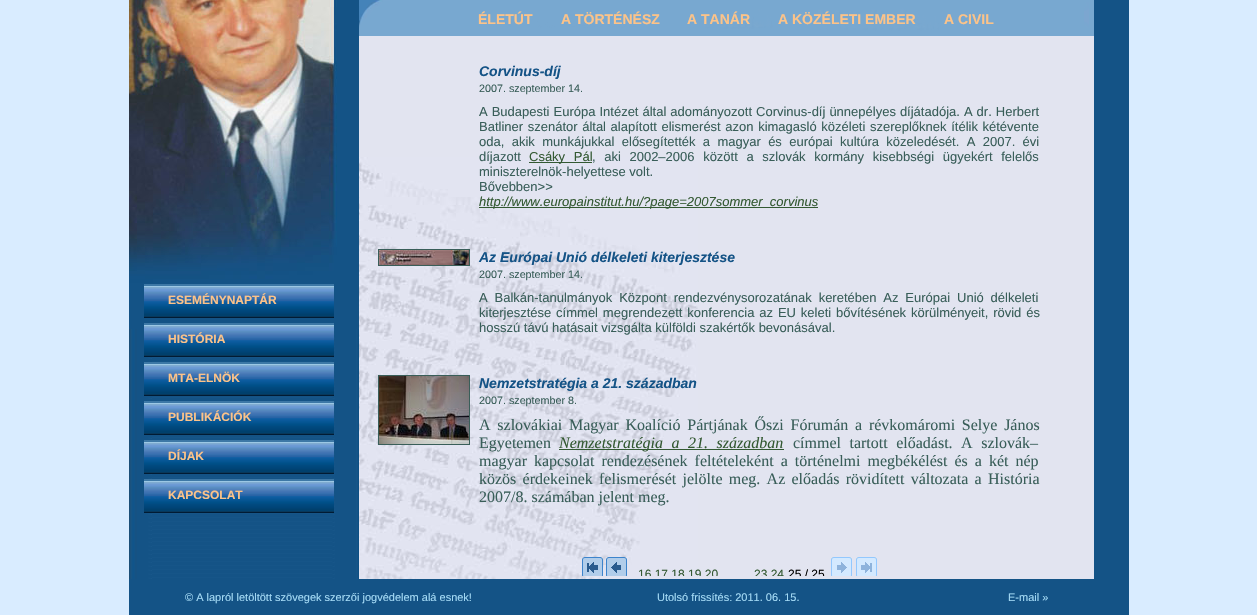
void draw(SkCanvas* canvas) {
    SkPaint paint;
    paint.setAntiAlias(true);
    auto spacedText = [&](const char* s, float x, float y, const SkFont& font, const SkPaint& ink, float letter, float word) {
        std::vector<SkGlyphID> glyphs(font.countText(s, strlen(s), SkTextEncoding::kUTF8));
        std::vector<float> xs(glyphs.size());
        font.textToGlyphs(s, strlen(s), SkTextEncoding::kUTF8, glyphs);
        font.getXPos(glyphs, xs, x);
        float extra = 0;
        for (size_t i = 0; i < glyphs.size(); i++) {
            xs[i] += extra;
            extra += letter + word * (glyphs[i] == font.unicharToGlyph(' '));
        }
        canvas->drawTextBlob(SkTextBlob::MakeFromPosHGlyphs(glyphs, xs, y, font), 0, 0, ink);
    };
    canvas->clear(0xFFD9ECFF);
    canvas->drawImageRect(SkImages::DeferredFromEncodedData(SkData::MakeFromFileName("img1.png")), SkRect::MakeXYWH(129, 0, 1000, 579), SkSamplingOptions());
    canvas->drawImageRect(SkImages::DeferredFromEncodedData(SkData::MakeFromFileName("img2.png")), SkRect::MakeXYWH(129, 0, 230, 329), SkSamplingOptions());
    canvas->drawImageRect(SkImages::DeferredFromEncodedData(SkData::MakeFromFileName("img3.png")), SkRect::MakeXYWH(144, 285, 190, 32), SkSamplingOptions());
    paint.setColor(0xFF3D78A6);
    canvas->drawRect(SkRect::MakeXYWH(144, 284, 190, 1), paint);
    paint.setColor(0xFF011B33);
    canvas->drawRect(SkRect::MakeXYWH(144, 317, 190, 1), paint);
    SkFont font1(fontMgr->matchFamilyStyle("Liberation Sans", SkFontStyle::Bold()), 12);
    font1.setSubpixel(true);
    paint.setColor(0xFFFCC389);
    canvas->drawString("ESEMÉNYNAPTÁR", 168, 304, font1, paint);
    canvas->drawImageRect(SkImages::DeferredFromEncodedData(SkData::MakeFromFileName("img3.png")), SkRect::MakeXYWH(144, 324, 190, 32), SkSamplingOptions());
    paint.setColor(0xFF3D78A6);
    canvas->drawRect(SkRect::MakeXYWH(144, 323, 190, 1), paint);
    paint.setColor(0xFF011B33);
    canvas->drawRect(SkRect::MakeXYWH(144, 356, 190, 1), paint);
    paint.setColor(0xFFFCC389);
    canvas->drawString("HISTÓRIA", 168, 343, font1, paint);
    canvas->drawImageRect(SkImages::DeferredFromEncodedData(SkData::MakeFromFileName("img3.png")), SkRect::MakeXYWH(144, 363, 190, 32), SkSamplingOptions());
    paint.setColor(0xFF3D78A6);
    canvas->drawRect(SkRect::MakeXYWH(144, 362, 190, 1), paint);
    paint.setColor(0xFF011B33);
    canvas->drawRect(SkRect::MakeXYWH(144, 395, 190, 1), paint);
    paint.setColor(0xFFFCC389);
    canvas->drawString("MTA-ELNÖK", 168, 382, font1, paint);
    canvas->drawImageRect(SkImages::DeferredFromEncodedData(SkData::MakeFromFileName("img3.png")), SkRect::MakeXYWH(144, 402, 190, 32), SkSamplingOptions());
    paint.setColor(0xFF3D78A6);
    canvas->drawRect(SkRect::MakeXYWH(144, 401, 190, 1), paint);
    paint.setColor(0xFF011B33);
    canvas->drawRect(SkRect::MakeXYWH(144, 434, 190, 1), paint);
    paint.setColor(0xFFFCC389);
    canvas->drawString("PUBLIKÁCIÓK", 168, 421, font1, paint);
    canvas->drawImageRect(SkImages::DeferredFromEncodedData(SkData::MakeFromFileName("img3.png")), SkRect::MakeXYWH(144, 441, 190, 32), SkSamplingOptions());
    paint.setColor(0xFF3D78A6);
    canvas->drawRect(SkRect::MakeXYWH(144, 440, 190, 1), paint);
    paint.setColor(0xFF011B33);
    canvas->drawRect(SkRect::MakeXYWH(144, 473, 190, 1), paint);
    paint.setColor(0xFFFCC389);
    canvas->drawString("DÍJAK", 168, 460, font1, paint);
    canvas->drawImageRect(SkImages::DeferredFromEncodedData(SkData::MakeFromFileName("img3.png")), SkRect::MakeXYWH(144, 480, 190, 32), SkSamplingOptions());
    paint.setColor(0xFF3D78A6);
    canvas->drawRect(SkRect::MakeXYWH(144, 479, 190, 1), paint);
    paint.setColor(0xFF011B33);
    canvas->drawRect(SkRect::MakeXYWH(144, 512, 190, 1), paint);
    paint.setColor(0xFFFCC389);
    canvas->drawString("KAPCSOLAT", 168, 499, font1, paint);
    canvas->drawImageRect(SkImages::DeferredFromEncodedData(SkData::MakeFromFileName("img4.png")), SkRect::MakeXYWH(359, 157, 339, 422), SkSamplingOptions());
    canvas->drawImageRect(SkImages::DeferredFromEncodedData(SkData::MakeFromFileName("img5.png")), SkRect::MakeXYWH(359, 0, 735, 36), SkSamplingOptions());
    SkFont font2(fontMgr->matchFamilyStyle("Liberation Sans", SkFontStyle::Bold()), 14);
    font2.setSubpixel(true);
    canvas->drawString("ÉLETÚT", 478, 24, font2, paint);
    canvas->drawString("A TÖRTÉNÉSZ", 561, 24, font2, paint);
    canvas->drawString("A TANÁR", 687, 24, font2, paint);
    canvas->drawString("A KÖZÉLETI EMBER", 778, 24, font2, paint);
    canvas->drawString("A CIVIL", 944, 24, font2, paint);
    SkFont font3(fontMgr->matchFamilyStyle("Liberation Sans", SkFontStyle::BoldItalic()), 14);
    font3.setSubpixel(true);
    paint.setColor(0xFF145386);
    canvas->drawString("Corvinus-díj", 479, 76, font3, paint);
    SkFont font4(fontMgr->matchFamilyStyle("Liberation Sans", SkFontStyle::Normal()), 10.75f);
    font4.setSubpixel(true);
    paint.setColor(0xFF395E59);
    canvas->drawString("2007. szeptember 14.", 479, 92, font4, paint);
    SkFont font5(fontMgr->matchFamilyStyle("Liberation Sans", SkFontStyle::Normal()), 13);
    font5.setSubpixel(true);
    spacedText("A Budapesti Európa Intézet által adományozott Corvinus-díj ünnepélyes díjátadója. A dr. Herbert", 479, 116, font5, paint, 0, 0.4f);
    spacedText("Batliner szenátor által alapított elismerést azon kimagasló közéleti szereplőknek ítélik kétévente", 479, 131, font5, paint, 0, 1);
    spacedText("oda, akik munkájukkal elősegítették a magyar és európai kultúra közeledését. A 2007. évi", 479, 146, font5, paint, 0, 3.75f);
    canvas->drawString("díjazott", 479, 161, font5, paint);
    paint.setColor(0xFF335932);
    canvas->drawRect(SkRect::MakeXYWH(529, 162, 63, 1), paint);
    spacedText("Csáky Pál", 529, 161, font5, paint, 0, 5);
    paint.setColor(0xFF395E59);
    spacedText(", aki 2002–2006 között a szlovák kormány kisebbségi ügyekért felelős", 592, 161, font5, paint, 0, 5);
    canvas->drawString("miniszterelnök-helyettese volt.", 479, 176, font5, paint);
    canvas->drawString("Bővebben>>", 479, 191, font5, paint);
    paint.setColor(0xFF335932);
    canvas->drawRect(SkRect::MakeXYWH(479, 207, 339, 1), paint);
    SkFont font6(fontMgr->matchFamilyStyle("Liberation Sans", SkFontStyle::Italic()), 13);
    font6.setSubpixel(true);
    canvas->drawString("http://www.europainstitut.hu/?page=2007sommer_corvinus", 479, 206, font6, paint);
    paint.setStyle(SkPaint::kStroke_Style);
    paint.setStrokeWidth(1);
    paint.setColor(0xFF395E59);
    canvas->drawRect(SkRect::MakeXYWH(378.5f, 249.5f, 91, 16), paint);
    canvas->drawImageRect(SkImages::DeferredFromEncodedData(SkData::MakeFromFileName("img6.png")), SkRect::MakeXYWH(379, 250, 90, 15), SkSamplingOptions());
    paint.setStyle(SkPaint::kFill_Style);
    paint.setColor(0xFF145386);
    canvas->drawString("Az Európai Unió délkeleti kiterjesztése", 479, 262, font3, paint);
    paint.setColor(0xFF395E59);
    canvas->drawString("2007. szeptember 14.", 479, 278, font4, paint);
    spacedText("A Balkán-tanulmányok Központ rendezvénysorozatának keretében Az Európai Unió délkeleti", 479, 302, font5, paint, 0, 3.25f);
    spacedText("kiterjesztése címmel megrendezett konferencia az EU keleti bővítésének körülményeit, rövid és", 479, 317, font5, paint, 0, 1.25f);
    canvas->drawString("hosszú távú hatásait vizsgálta külföldi szakértők bevonásával.", 479, 332, font5, paint);
    paint.setStyle(SkPaint::kStroke_Style);
    canvas->drawRect(SkRect::MakeXYWH(378.5f, 375.5f, 91, 69), paint);
    canvas->drawImageRect(SkImages::DeferredFromEncodedData(SkData::MakeFromFileName("img7.png")), SkRect::MakeXYWH(379, 376, 90, 68), SkSamplingOptions());
    paint.setStyle(SkPaint::kFill_Style);
    paint.setColor(0xFF145386);
    canvas->drawString("Nemzetstratégia a 21. században", 479, 388, font3, paint);
    paint.setColor(0xFF395E59);
    canvas->drawString("2007. szeptember 8.", 479, 404, font4, paint);
    SkFont font7(fontMgr->matchFamilyStyle("Liberation Serif", SkFontStyle::Normal()), 16);
    font7.setSubpixel(true);
    spacedText("A szlovákiai Magyar Koalíció Pártjának Őszi Fórumán a révkomáromi Selye János", 479, 430, font7, paint, 0, 2.75f);
    canvas->drawString("Egyetemen", 479, 448, font7, paint);
    paint.setColor(0xFF335932);
    canvas->drawRect(SkRect::MakeXYWH(559, 449, 225, 1), paint);
    SkFont font8(fontMgr->matchFamilyStyle("Liberation Serif", SkFontStyle::Italic()), 16);
    font8.setSubpixel(true);
    spacedText("Nemzetstratégia a 21. században", 559, 448, font8, paint, 0, 4.5f);
    paint.setColor(0xFF395E59);
    spacedText("címmel tartott előadást. A szlovák–", 793, 448, font7, paint, 0, 4.5f);
    spacedText("magyar kapcsolat rendezésének feltételeként a történelmi megbékélést és a két nép", 479, 466, font7, paint, 0, 3);
    spacedText("közös érdekeinek felismerését jelölte meg. Az előadás rövidített változata a História", 479, 484, font7, paint, 0, 2.25f);
    canvas->drawString("2007/8. számában jelent meg.", 479, 502, font7, paint);
    canvas->drawImageRect(SkImages::DeferredFromEncodedData(SkData::MakeFromFileName("img8.png")), SkRect::MakeXYWH(582, 557, 21, 19), SkSamplingOptions());
    canvas->drawImageRect(SkImages::DeferredFromEncodedData(SkData::MakeFromFileName("img9.png")), SkRect::MakeXYWH(606, 557, 21, 19), SkSamplingOptions());
    canvas->save();
    canvas->clipRect(SkRect::MakeXYWH(359, 36, 735, 540));
    SkFont font9(fontMgr->matchFamilyStyle("Liberation Sans", SkFontStyle::Normal()), 12);
    font9.setSubpixel(true);
    paint.setColor(0xFF335932);
    canvas->drawString("16 17 18 19 20", 638, 578, font9, paint);
    canvas->drawString("23 24", 754, 578, font9, paint);
    paint.setColor(0xFF000000);
    canvas->drawString("25 / 25", 788, 578, font9, paint);
    canvas->restore();
    canvas->drawImageRect(SkImages::DeferredFromEncodedData(SkData::MakeFromFileName("img10.png")), SkRect::MakeXYWH(831, 557, 21, 19), SkSamplingOptions());
    canvas->drawImageRect(SkImages::DeferredFromEncodedData(SkData::MakeFromFileName("img11.png")), SkRect::MakeXYWH(856, 557, 21, 19), SkSamplingOptions());
    paint.setColor(0xFF145386);
    canvas->drawRect(SkRect::MakeXYWH(129, 579, 1000, 36), paint);
    SkFont font10(fontMgr->matchFamilyStyle("Liberation Sans", SkFontStyle::Normal()), 11);
    font10.setSubpixel(true);
    paint.setColor(0xFFA5DBF6);
    canvas->drawString("© A lapról letöltött szövegek szerzői jogvédelem alá esnek!", 185, 601, font10, paint);
    canvas->drawString("Utolsó frissítés: 2011. 06. 15.", 657, 601, font10, paint);
    canvas->drawString("E-mail »", 1008, 601, font10, paint);
}
